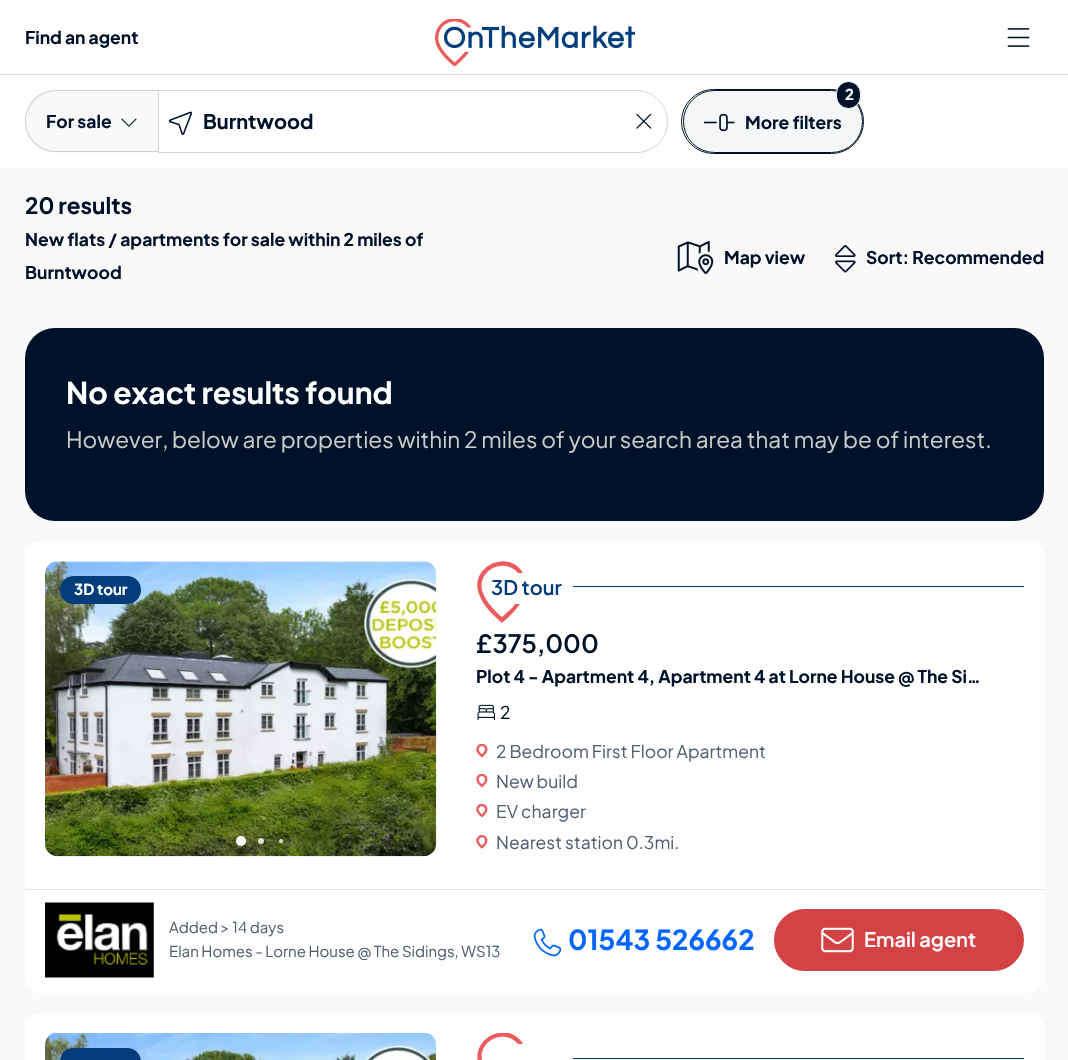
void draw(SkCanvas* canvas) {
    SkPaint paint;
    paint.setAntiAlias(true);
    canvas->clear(0xFFFFFFFF);
    paint.setColor(0xFFD9DCE1);
    canvas->drawRect(SkRect::MakeXYWH(0, 74, 1068, 1), paint);
    SkFont font1(fontMgr->matchFamilyStyle("Plus Jakarta Sans", SkFontStyle::Bold()), 17.5f);
    font1.setSubpixel(true);
    paint.setColor(0xFF001229);
    canvas->drawString("Find an agent", 25, 44, font1, paint);
    canvas->drawImageRect(SkImages::DeferredFromEncodedData(SkData::MakeFromFileName("img1.png")), SkRect::MakeXYWH(435, 19, 200, 47), SkSamplingOptions());
    canvas->drawImageRect(SkImages::DeferredFromEncodedData(SkData::MakeFromFileName("img2.png")), SkRect::MakeXYWH(1007, 28, 23, 19), SkSamplingOptions());
    paint.setColor(0xFFFAF9F9);
    canvas->drawPath(SkPathBuilder().moveTo(56.5f, 90).lineTo(158, 90).lineTo(158, 153).lineTo(56.5f, 153).cubicTo(39, 153, 25, 139, 25, 121.5f).cubicTo(25, 104, 39, 90, 56.5f, 90).close().detach(), paint);
    paint.setColor(0x80A1A8B3);
    canvas->drawPath(SkPathBuilder(SkPathFillType::kEvenOdd).moveTo(56, 90).lineTo(158, 90).lineTo(158, 152).lineTo(56, 152).cubicTo(39, 152, 25, 139, 25, 121).cubicTo(25, 104, 39, 90, 56, 90).close().moveTo(56, 91).lineTo(158, 91).lineTo(158, 151).lineTo(56, 151).cubicTo(40, 151, 26, 138, 26, 121).cubicTo(26, 105, 40, 91, 56, 91).close().detach(), paint);
    paint.setColor(0xFF001229);
    canvas->drawString("For sale", 46, 128, font1, paint);
    canvas->drawImageRect(SkImages::DeferredFromEncodedData(SkData::MakeFromFileName("img3.png")), SkRect::MakeXYWH(121, 118, 16, 9), SkSamplingOptions());
    paint.setStyle(SkPaint::kStroke_Style);
    paint.setStrokeWidth(1);
    paint.setColor(0xFFD0D4D9);
    canvas->drawPath(SkPathBuilder().moveTo(158.5f, 90.5f).lineTo(636.5f, 90.5f).cubicTo(653.5f, 90.5f, 667.5f, 104.5f, 667.5f, 121.5f).cubicTo(667.5f, 138.5f, 653.5f, 152.5f, 636.5f, 152.5f).lineTo(158.5f, 152.5f).close().detach(), paint);
    canvas->drawImageRect(SkImages::DeferredFromEncodedData(SkData::MakeFromFileName("img4.png")), SkRect::MakeXYWH(168, 111, 25, 24), SkSamplingOptions());
    SkFont font2(fontMgr->matchFamilyStyle("Plus Jakarta Sans", SkFontStyle::Bold()), 20);
    font2.setSubpixel(true);
    paint.setStyle(SkPaint::kFill_Style);
    paint.setColor(0xFF001229);
    canvas->drawString("Burntwood", 203, 129, font2, paint);
    canvas->drawImageRect(SkImages::DeferredFromEncodedData(SkData::MakeFromFileName("img5.png")), SkRect::MakeXYWH(636, 113, 16, 16), SkSamplingOptions());
    paint.setStyle(SkPaint::kStroke_Style);
    canvas->drawRoundRect(SkRect::MakeXYWH(681.5f, 89.5f, 182, 64), 32, 32, paint);
    paint.setStyle(SkPaint::kFill_Style);
    paint.setColor(0x1AA1A8B3);
    canvas->drawRoundRect(SkRect::MakeXYWH(683.5f, 90.5f, 179, 62), 31, 31, paint);
    paint.setStyle(SkPaint::kStroke_Style);
    paint.setColor(0xFF001229);
    canvas->drawRoundRect(SkRect::MakeXYWH(683.5f, 90.5f, 179, 62), 31, 31, paint);
    paint.setStyle(SkPaint::kFill_Style);
    canvas->drawRoundRect(SkRect::MakeXYWH(836.5f, 81.5f, 24, 27), 12, 12, paint);
    paint.setStyle(SkPaint::kStroke_Style);
    paint.setColor(0xFFFFFFFF);
    canvas->drawRoundRect(SkRect::MakeXYWH(836.5f, 81.5f, 24, 27), 12, 12, paint);
    SkFont font3(fontMgr->matchFamilyStyle("Plus Jakarta Sans", SkFontStyle::Bold()), 15);
    font3.setSubpixel(true);
    paint.setStyle(SkPaint::kFill_Style);
    canvas->drawString("2", 845, 100, font3, paint);
    canvas->drawImageRect(SkImages::DeferredFromEncodedData(SkData::MakeFromFileName("img6.png")), SkRect::MakeXYWH(703, 113, 32, 19), SkSamplingOptions());
    paint.setColor(0xFF001229);
    canvas->drawString("More filters", 745, 129, font1, paint);
    paint.setColor(0xFFFAF9F9);
    canvas->drawRect(SkRect::MakeXYWH(0, 168, 1068, 892), paint);
    SkFont font4(fontMgr->matchFamilyStyle("Plus Jakarta Sans", SkFontStyle::Bold()), 22.5f);
    font4.setSubpixel(true);
    paint.setColor(0xFF001229);
    canvas->drawString("20 results", 25, 214, font4, paint);
    canvas->drawString("New flats / apartments for sale within 2 miles of", 25, 246, font1, paint);
    canvas->drawString("Burntwood", 25, 279, font1, paint);
    canvas->drawImageRect(SkImages::DeferredFromEncodedData(SkData::MakeFromFileName("img7.png")), SkRect::MakeXYWH(677, 240, 37, 34), SkSamplingOptions());
    canvas->drawString("Map view", 724, 264, font1, paint);
    canvas->drawImageRect(SkImages::DeferredFromEncodedData(SkData::MakeFromFileName("img8.png")), SkRect::MakeXYWH(835, 245, 21, 28), SkSamplingOptions());
    canvas->drawString("Sort: Recommended", 866, 264, font1, paint);
    canvas->drawRoundRect(SkRect::MakeXYWH(25, 328, 1019, 193), 30, 30, paint);
    SkFont font5(fontMgr->matchFamilyStyle("Plus Jakarta Sans", SkFontStyle::Bold()), 30);
    font5.setSubpixel(true);
    paint.setColor(0xFFFFFFFF);
    canvas->drawString("No exact results found", 66, 404, font5, paint);
    SkFont font6(fontMgr->matchFamilyStyle("Plus Jakarta Sans", SkFontStyle::Normal()), 22.5f);
    font6.setSubpixel(true);
    paint.setColor(0xFFCBCBCB);
    canvas->drawString("However, below are properties within 2 miles of your search area that may be of interest.", 66, 448, font6, paint);
    paint.setColor(0xFFFFFFFF);
    canvas->drawRoundRect(SkRect::MakeXYWH(25, 541, 1019, 452), 15, 15, paint);
    canvas->drawImageRect(SkImages::DeferredFromEncodedData(SkData::MakeFromFileName("img9.png")), SkRect::MakeXYWH(45, 561, 392, 296), SkSamplingOptions());
    canvas->drawCircle(241, 841, 5, paint);
    paint.setColor(0xCCFFFFFF);
    canvas->drawCircle(261, 841, 3, paint);
    canvas->drawCircle(281, 841, 2, paint);
    paint.setColor(0xFF003D7A);
    canvas->drawRoundRect(SkRect::MakeXYWH(60, 576, 81, 28), 14, 14, paint);
    paint.setColor(0xFFFFFFFF);
    canvas->drawString("3D tour", 74, 595, font3, paint);
    paint.setColor(0xFFEB5C5F);
    canvas->drawPath(SkPathBuilder().moveTo(512, 608).lineTo(502, 617).cubicTo(495, 611, 487, 603, 483, 593).cubicTo(475, 571, 504, 556, 518, 573).lineTo(523, 573).cubicTo(508, 548, 469, 567, 479, 594).cubicTo(483, 606, 493, 615, 502, 623).cubicTo(509, 617, 515, 611, 520, 604).lineTo(515, 604).close().detach(), paint);
    SkFont font7(fontMgr->matchFamilyStyle("Plus Jakarta Sans", SkFontStyle(600, SkFontStyle::kNormal_Width, SkFontStyle::kUpright_Slant)), 20);
    font7.setSubpixel(true);
    paint.setColor(0xFF003D7A);
    canvas->drawString("3D tour", 491, 595, font7, paint);
    canvas->drawRect(SkRect::MakeXYWH(573, 586, 451, 1), paint);
    SkFont font8(fontMgr->matchFamilyStyle("Plus Jakarta Sans", SkFontStyle(600, SkFontStyle::kNormal_Width, SkFontStyle::kUpright_Slant)), 25);
    font8.setSubpixel(true);
    paint.setColor(0xFF001229);
    canvas->drawString("£375,000", 476, 653, font8, paint);
    canvas->drawString("Plot 4 - Apartment 4, Apartment 4 at Lorne House @ The Si…", 476, 683, font1, paint);
    canvas->drawImageRect(SkImages::DeferredFromEncodedData(SkData::MakeFromFileName("img10.png")), SkRect::MakeXYWH(477, 704, 18, 17), SkSamplingOptions());
    SkFont font9(fontMgr->matchFamilyStyle("Plus Jakarta Sans", SkFontStyle::Normal()), 17.5f);
    font9.setSubpixel(true);
    canvas->drawString("2", 500, 719, font9, paint);
    canvas->drawImageRect(SkImages::DeferredFromEncodedData(SkData::MakeFromFileName("img11.png")), SkRect::MakeXYWH(476, 744, 12, 14), SkSamplingOptions());
    paint.setColor(0xFF525F74);
    canvas->drawString("2 Bedroom First Floor Apartment", 496, 758, font9, paint);
    canvas->drawImageRect(SkImages::DeferredFromEncodedData(SkData::MakeFromFileName("img11.png")), SkRect::MakeXYWH(476, 774, 12, 14), SkSamplingOptions());
    canvas->drawString("New build", 496, 788, font9, paint);
    canvas->drawImageRect(SkImages::DeferredFromEncodedData(SkData::MakeFromFileName("img11.png")), SkRect::MakeXYWH(476, 804, 12, 14), SkSamplingOptions());
    canvas->drawString("EV charger", 496, 818, font9, paint);
    canvas->drawImageRect(SkImages::DeferredFromEncodedData(SkData::MakeFromFileName("img12.png")), SkRect::MakeXYWH(476, 835, 12, 14), SkSamplingOptions());
    canvas->drawString("Nearest station 0.3mi.", 496, 849, font9, paint);
    paint.setColor(0xFFE5E7EB);
    canvas->drawRect(SkRect::MakeXYWH(25, 889, 1019, 1), paint);
    canvas->drawImageRect(SkImages::DeferredFromEncodedData(SkData::MakeFromFileName("img13.png")), SkRect::MakeXYWH(45, 902, 109, 76), SkSamplingOptions());
    SkFont font10(fontMgr->matchFamilyStyle("Plus Jakarta Sans", SkFontStyle::Normal()), 15);
    font10.setSubpixel(true);
    paint.setColor(0xFF525F74);
    canvas->drawString("Added > 14 days", 169, 933, font10, paint);
    canvas->drawString("Elan Homes - Lorne House @ The Sidings, WS13", 169, 957, font10, paint);
    canvas->drawImageRect(SkImages::DeferredFromEncodedData(SkData::MakeFromFileName("img14.png")), SkRect::MakeXYWH(533, 928, 29, 29), SkSamplingOptions());
    SkFont font11(fontMgr->matchFamilyStyle("Plus Jakarta Sans", SkFontStyle::Bold()), 27.5f);
    font11.setSubpixel(true);
    paint.setColor(0xFF0066FF);
    canvas->drawString("01543 526662", 568, 950, font11, paint);
    paint.setColor(0xFFD34346);
    canvas->drawRoundRect(SkRect::MakeXYWH(775.5f, 910.5f, 247, 59), 29.5f, 29.5f, paint);
    paint.setStyle(SkPaint::kStroke_Style);
    paint.setStrokeWidth(3);
    canvas->drawRoundRect(SkRect::MakeXYWH(775.5f, 910.5f, 247, 59), 29.5f, 29.5f, paint);
    canvas->drawImageRect(SkImages::DeferredFromEncodedData(SkData::MakeFromFileName("img15.png")), SkRect::MakeXYWH(821, 927, 33, 26), SkSamplingOptions());
    paint.setStyle(SkPaint::kFill_Style);
    paint.setColor(0xFFFFFFFF);
    canvas->drawString("Email agent", 864, 947, font7, paint);
    canvas->drawPath(SkPathBuilder().moveTo(40, 1013).lineTo(1029, 1013).cubicTo(1037.5f, 1013, 1044, 1019.5f, 1044, 1028).lineTo(1044, 1060).lineTo(25, 1060).lineTo(25, 1028).cubicTo(25, 1019.5f, 31.5f, 1013, 40, 1013).close().detach(), paint);
    canvas->drawImageRect(SkImages::DeferredFromEncodedData(SkData::MakeFromFileName("img16.png")), SkRect::MakeXYWH(45, 1033, 391, 27), SkSamplingOptions());
    paint.setColor(0xFF003D7A);
    canvas->drawPath(SkPathBuilder().moveTo(73.5f, 1048).lineTo(127.5f, 1048).cubicTo(135, 1048, 141, 1054, 141, 1061.5f).lineTo(141, 1060).lineTo(60, 1060).lineTo(60, 1061.5f).cubicTo(60, 1054, 66, 1048, 73.5f, 1048).close().detach(), paint);
    canvas->save();
    canvas->clipRect(SkRect::MakeXYWH(476, 1033, 49, 27));
    paint.setColor(0xFFEB5C5F);
    canvas->drawPath(SkPathBuilder().moveTo(512, 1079).lineTo(502, 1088).cubicTo(495, 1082, 487, 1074, 483, 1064).cubicTo(475, 1042, 504, 1027, 518, 1044).lineTo(523, 1044).cubicTo(508, 1019, 469, 1038, 479, 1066).cubicTo(483, 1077, 493, 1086, 502, 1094).cubicTo(509, 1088, 515, 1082, 520, 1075).lineTo(515, 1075).close().detach(), paint);
    canvas->restore();
    paint.setColor(0xFF003D7A);
    canvas->drawRect(SkRect::MakeXYWH(573, 1058, 451, 1), paint);
}
